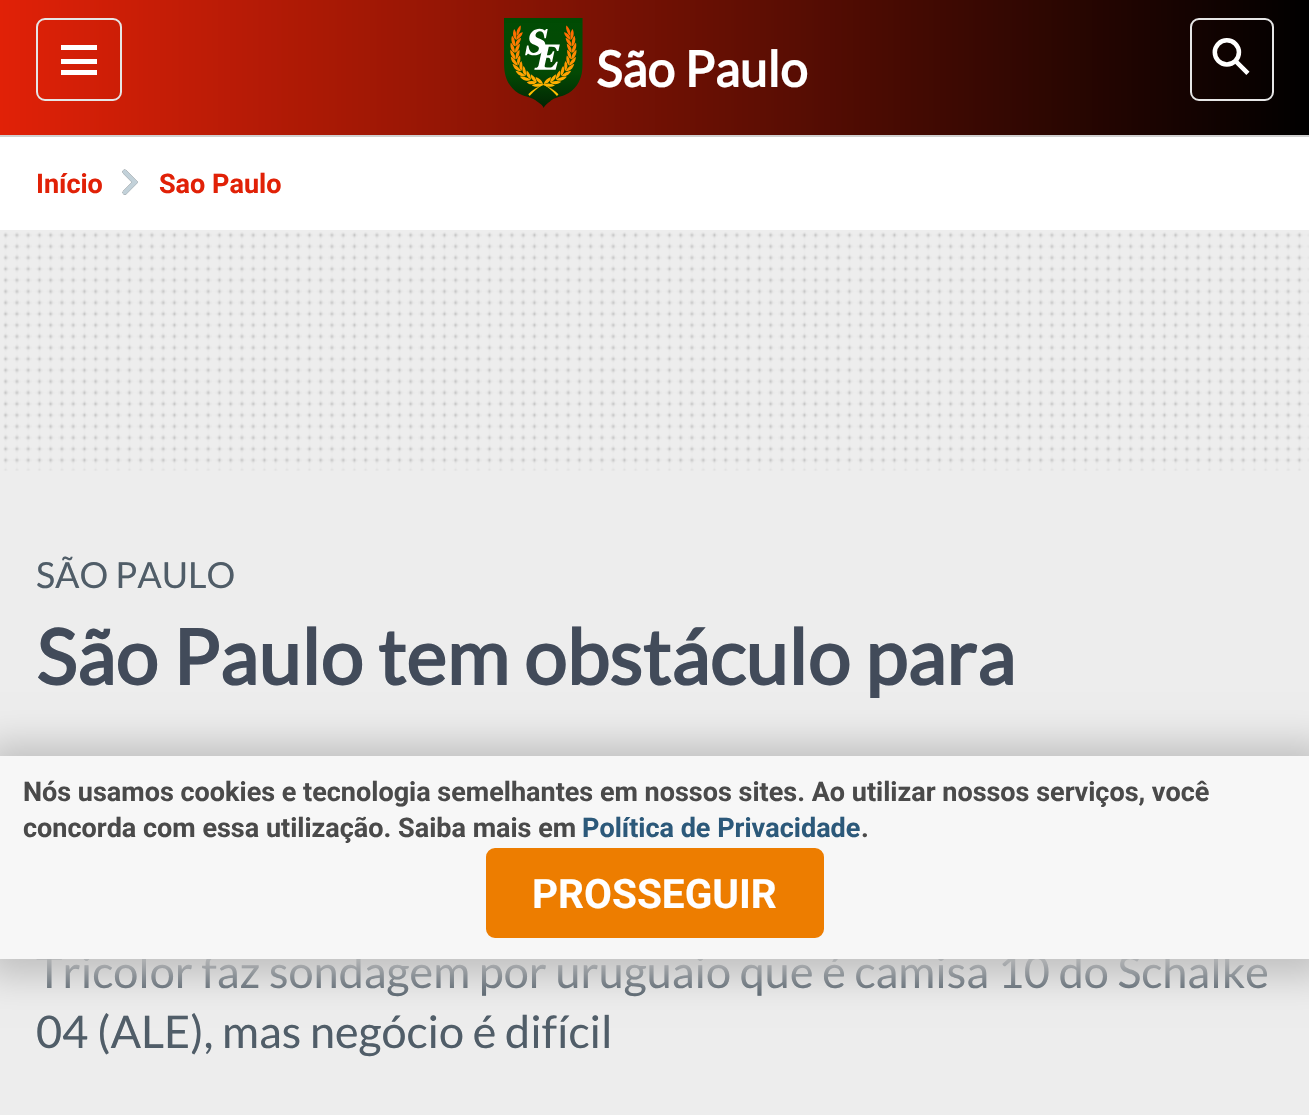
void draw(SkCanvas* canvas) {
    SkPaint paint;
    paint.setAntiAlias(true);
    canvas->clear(0xFFFFFFFF);
    {
        const SkColor colors[] = {0xFFE12107, 0xFF000000};
        const float stops[] = {0, 1};
        const SkPoint ends[] = {{0, 68}, {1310, 67}};
        paint.setShader(SkGradientShader::MakeLinear(ends, colors, stops, 2, SkTileMode::kClamp));
        paint.setAlpha(255);
    }
    canvas->drawRect(SkRect::MakeXYWH(0, 0, 1309, 135), paint);
    paint.setStyle(SkPaint::kStroke_Style);
    paint.setStrokeWidth(2);
    paint.setShader(nullptr);
    paint.setColor(0xFFE6E6E6);
    canvas->drawRoundRect(SkRect::MakeXYWH(37, 19, 84, 81), 8, 8, paint);
    paint.setStyle(SkPaint::kFill_Style);
    paint.setColor(0xFFFFFFFF);
    canvas->drawRect(SkRect::MakeXYWH(61, 45, 36, 5), paint);
    canvas->drawRect(SkRect::MakeXYWH(61, 59, 36, 5), paint);
    canvas->drawRect(SkRect::MakeXYWH(61, 70, 36, 5), paint);
    canvas->drawImageRect(SkImages::DeferredFromEncodedData(SkData::MakeFromFileName("img1.png")), SkRect::MakeXYWH(504, 18, 79, 90), SkSamplingOptions());
    SkFont font1(fontMgr->matchFamilyStyle("Lato", SkFontStyle::Bold()), 49.5f);
    font1.setSubpixel(true);
    canvas->drawString("São Paulo", 596, 87, font1, paint);
    paint.setStyle(SkPaint::kStroke_Style);
    paint.setColor(0xFFE6E6E6);
    canvas->drawRoundRect(SkRect::MakeXYWH(1191, 19, 82, 81), 8, 8, paint);
    canvas->drawImageRect(SkImages::DeferredFromEncodedData(SkData::MakeFromFileName("img2.png")), SkRect::MakeXYWH(1212, 38, 38, 37), SkSamplingOptions());
    paint.setStyle(SkPaint::kFill_Style);
    paint.setColor(0xFFD0D0D0);
    canvas->drawRect(SkRect::MakeXYWH(0, 135, 1309, 2), paint);
    SkFont font2(fontMgr->matchFamilyStyle("Roboto", SkFontStyle::Bold()), 27);
    font2.setSubpixel(true);
    paint.setColor(0xFFE12107);
    canvas->drawString("Início", 36, 193, font2, paint);
    canvas->drawImageRect(SkImages::DeferredFromEncodedData(SkData::MakeFromFileName("img3.png")), SkRect::MakeXYWH(122, 169, 16, 26), SkSamplingOptions());
    canvas->drawString("Sao Paulo", 159, 193, font2, paint);
    paint.setColor(0xFFEDEDED);
    canvas->drawRect(SkRect::MakeXYWH(0, 230, 1309, 885), paint);
    canvas->drawImageRect(SkImages::DeferredFromEncodedData(SkData::MakeFromFileName("img4.png")), SkRect::MakeXYWH(3, 232, 1306, 239), SkSamplingOptions());
    SkFont font3(fontMgr->matchFamilyStyle("Lato", SkFontStyle::Normal()), 36);
    font3.setSubpixel(true);
    paint.setColor(0xFF505D68);
    canvas->drawString("SÃO PAULO", 36, 588, font3, paint);
    SkFont font4(fontMgr->matchFamilyStyle("Lato", SkFontStyle::Bold()), 76.5f);
    font4.setSubpixel(true);
    paint.setColor(0xFF424B5A);
    canvas->drawString("São Paulo tem obstáculo para", 36, 685, font4, paint);
    SkFont font5(fontMgr->matchFamilyStyle("Lato", SkFontStyle::Normal()), 45);
    font5.setSubpixel(true);
    paint.setColor(0xFF505D68);
    canvas->drawString("Tricolor faz sondagem por uruguaio que é camisa 10 do Schalke", 36, 988, font5, paint);
    canvas->drawString("04 (ALE), mas negócio é difícil", 36, 1048, font5, paint);
    paint.setColor(0xFFC1C1C1);
    paint.setMaskFilter(SkMaskFilter::MakeBlur(kNormal_SkBlurStyle, 17));
    canvas->drawRect(SkRect::MakeXYWH(-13, 743, 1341, 234), paint);
    paint.setMaskFilter(nullptr);
    paint.setColor(0xFFF7F7F7);
    canvas->drawRect(SkRect::MakeXYWH(0, 756, 1309, 203), paint);
    paint.setColor(0xFF4A4A4A);
    canvas->drawString("Nós usamos cookies e tecnologia semelhantes em nossos sites. Ao utilizar nossos serviços, você", 23, 801, font2, paint);
    canvas->drawString("concorda com essa utilização. Saiba mais em", 23, 837, font2, paint);
    paint.setColor(0xFF2C597A);
    canvas->drawString("Política de Privacidade", 582, 837, font2, paint);
    paint.setColor(0xFF4A4A4A);
    canvas->drawString(".", 861, 837, font2, paint);
    paint.setColor(0xFFED7D00);
    canvas->drawRoundRect(SkRect::MakeXYWH(487, 849, 336, 88), 8, 8, paint);
    paint.setStyle(SkPaint::kStroke_Style);
    canvas->drawRoundRect(SkRect::MakeXYWH(487, 849, 336, 88), 8, 8, paint);
    SkFont font6(fontMgr->matchFamilyStyle("Roboto", SkFontStyle::Bold()), 40.5f);
    font6.setSubpixel(true);
    paint.setStyle(SkPaint::kFill_Style);
    paint.setColor(0xFFFFFFFF);
    canvas->drawString("PROSSEGUIR", 532, 908, font6, paint);
}
